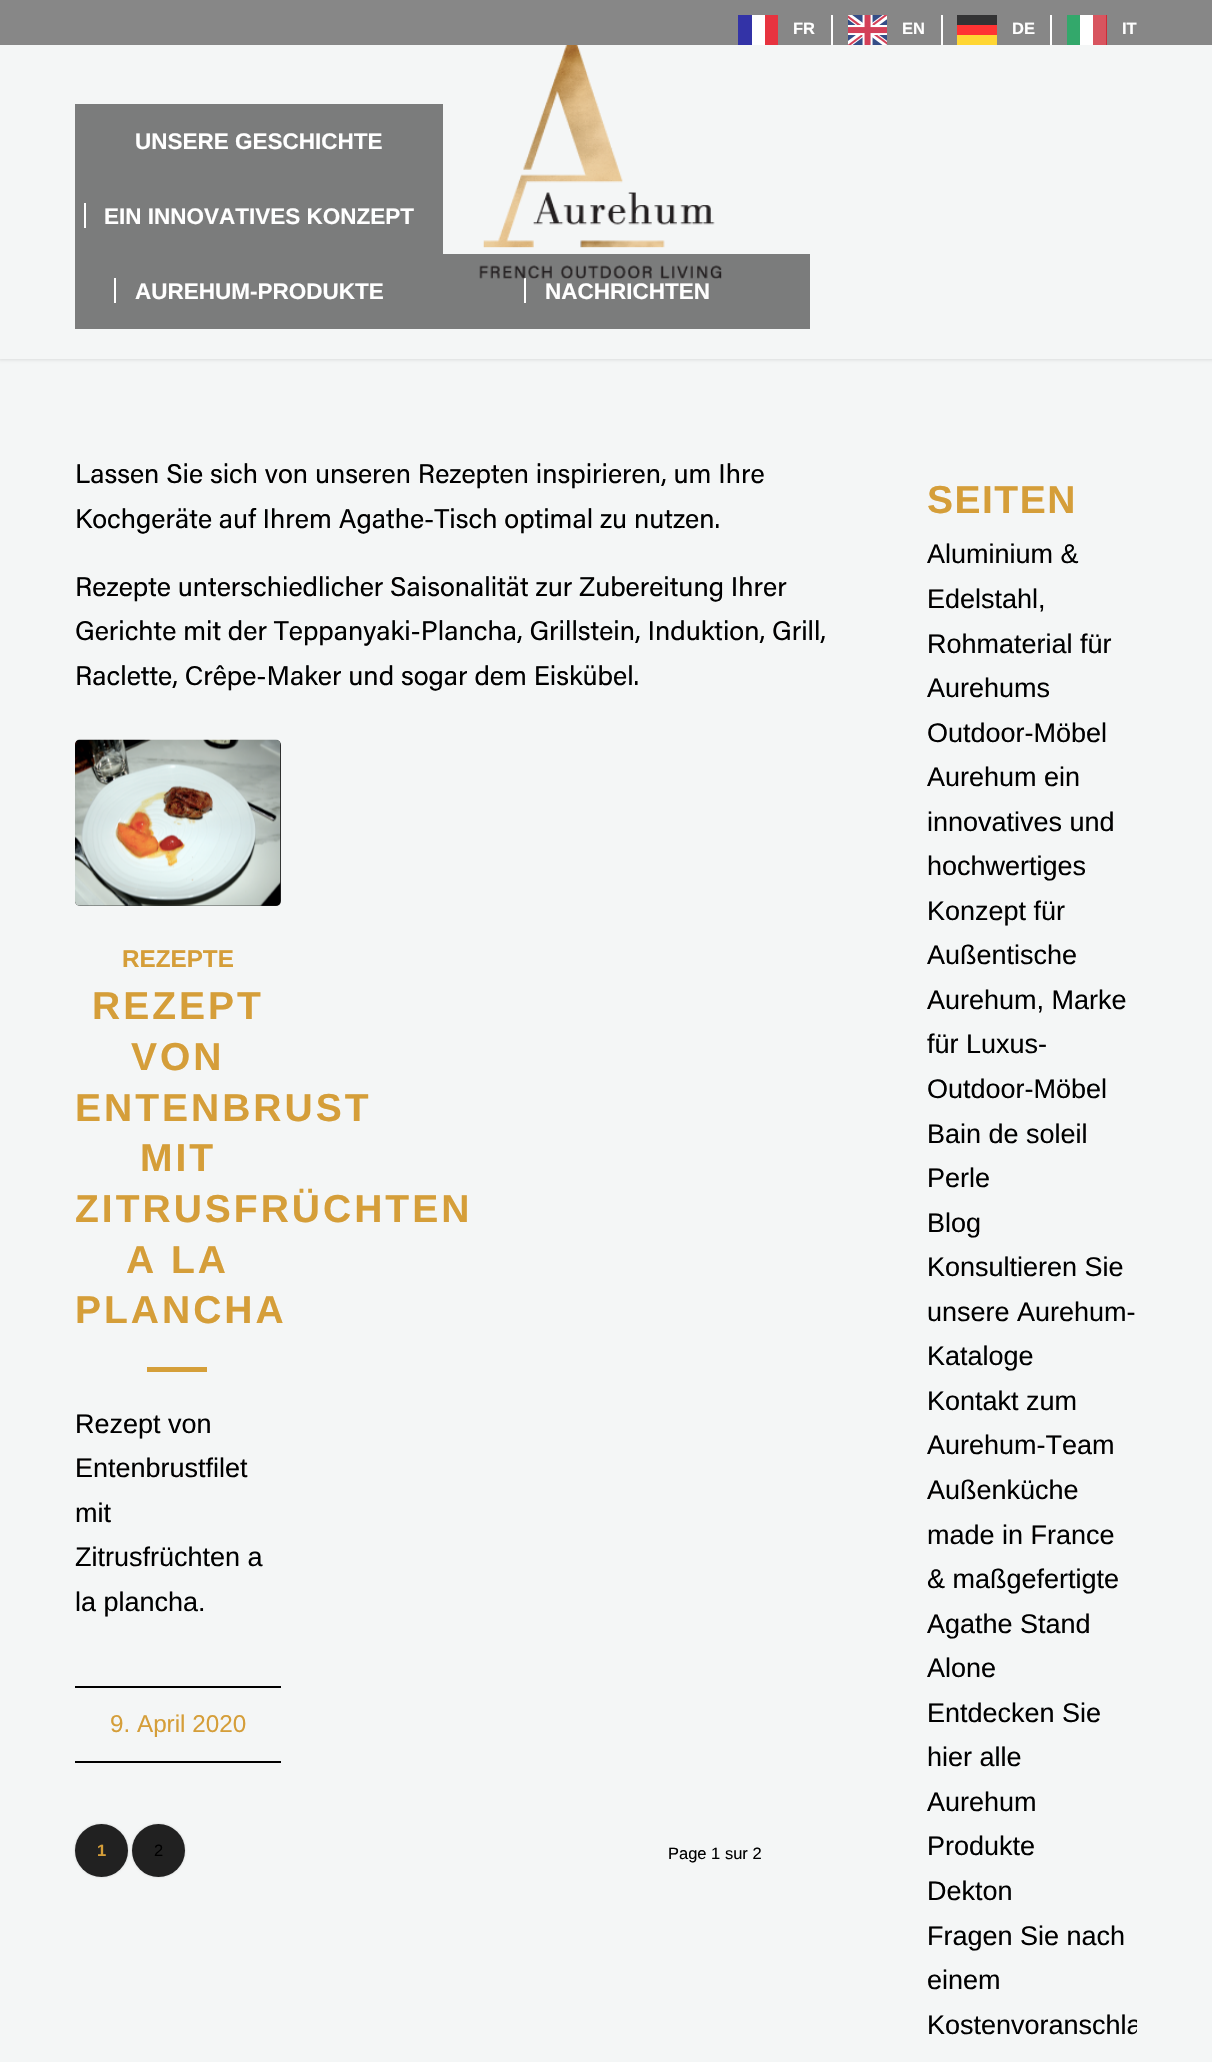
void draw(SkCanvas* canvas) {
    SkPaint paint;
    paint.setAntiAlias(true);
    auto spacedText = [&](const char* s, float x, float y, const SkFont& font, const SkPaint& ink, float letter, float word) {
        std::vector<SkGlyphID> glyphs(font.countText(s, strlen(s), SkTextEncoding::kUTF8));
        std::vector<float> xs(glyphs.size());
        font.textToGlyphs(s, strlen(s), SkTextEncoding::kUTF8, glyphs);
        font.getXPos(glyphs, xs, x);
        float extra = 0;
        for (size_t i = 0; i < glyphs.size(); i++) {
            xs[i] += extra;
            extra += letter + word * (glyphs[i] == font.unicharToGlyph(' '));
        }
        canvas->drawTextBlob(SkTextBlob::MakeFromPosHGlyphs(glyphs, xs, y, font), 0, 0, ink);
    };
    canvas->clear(0xFFF4F6F6);
    paint.setColor(0x1A000000);
    paint.setMaskFilter(SkMaskFilter::MakeBlur(kNormal_SkBlurStyle, 1.5f));
    canvas->drawRect(SkRect::MakeXYWH(-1, -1, 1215, 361), paint);
    paint.setMaskFilter(nullptr);
    paint.setColor(0xFF878787);
    canvas->drawRect(SkRect::MakeXYWH(0, 0, 1212, 45), paint);
    paint.setColor(0xFFFFFFFF);
    canvas->drawRect(SkRect::MakeXYWH(831, 15, 2, 30), paint);
    canvas->drawRect(SkRect::MakeXYWH(752, 15, 13, 30), paint);
    paint.setColor(0xFF3333A7);
    canvas->drawRect(SkRect::MakeXYWH(738, 15, 14, 30), paint);
    paint.setColor(0xFFE7333F);
    canvas->drawRect(SkRect::MakeXYWH(765, 15, 13, 30), paint);
    SkFont font1(fontMgr->matchFamilyStyle("Liberation Sans", SkFontStyle::Bold()), 16.5f);
    font1.setSubpixel(true);
    paint.setColor(0xFFFFFFFF);
    canvas->drawString("FR", 793, 34, font1, paint);
    canvas->drawRect(SkRect::MakeXYWH(941, 15, 2, 30), paint);
    canvas->drawImageRect(SkImages::DeferredFromEncodedData(SkData::MakeFromFileName("img1.png")), SkRect::MakeXYWH(848, 15, 39, 30), SkSamplingOptions());
    canvas->drawString("EN", 902, 34, font1, paint);
    canvas->drawRect(SkRect::MakeXYWH(1050, 15, 2, 30), paint);
    paint.setColor(0xFFFFD633);
    canvas->drawRect(SkRect::MakeXYWH(957, 35, 40, 10), paint);
    paint.setColor(0xFF333334);
    canvas->drawRect(SkRect::MakeXYWH(957, 15, 40, 10), paint);
    paint.setColor(0xFFFF3333);
    canvas->drawRect(SkRect::MakeXYWH(957, 25, 40, 10), paint);
    paint.setColor(0xFFFFFFFF);
    canvas->drawString("DE", 1012, 34, font1, paint);
    canvas->drawRect(SkRect::MakeXYWH(1080, 15, 13, 30), paint);
    paint.setColor(0xFF33A86B);
    canvas->drawRect(SkRect::MakeXYWH(1067, 15, 13, 30), paint);
    paint.setColor(0xFFCE2B37);
    canvas->drawRect(SkRect::MakeXYWH(1106, 15, 1, 30), paint);
    paint.setColor(0xFFD8555F);
    canvas->drawRect(SkRect::MakeXYWH(1093, 15, 13, 30), paint);
    paint.setColor(0xFFFFFFFF);
    canvas->drawString("IT", 1122, 34, font1, paint);
    paint.setColor(0xFFF4F6F6);
    canvas->drawRect(SkRect::MakeXYWH(0, 45, 1212, 314), paint);
    paint.setColor(0xFF7B7C7C);
    canvas->drawRect(SkRect::MakeXYWH(443, 254, 367, 75), paint);
    paint.setColor(0xFFFFFFFF);
    canvas->drawRect(SkRect::MakeXYWH(524, 278, 2, 25), paint);
    canvas->drawImageRect(SkImages::DeferredFromEncodedData(SkData::MakeFromFileName("img2.png")), SkRect::MakeXYWH(479, 45, 243, 234), SkSamplingOptions());
    paint.setColor(0xFF7B7C7C);
    canvas->drawRect(SkRect::MakeXYWH(75, 104, 368, 225), paint);
    SkFont font2(fontMgr->matchFamilyStyle("Liberation Sans", SkFontStyle::Bold()), 22.5f);
    font2.setSubpixel(true);
    paint.setColor(0xFFFFFFFF);
    canvas->drawString("UNSERE GESCHICHTE", 135, 149, font2, paint);
    canvas->drawString("EIN INNOVATIVES KONZEPT", 104, 224, font2, paint);
    canvas->drawRect(SkRect::MakeXYWH(84, 203, 2, 25), paint);
    canvas->drawString("AUREHUM-PRODUKTE", 135, 299, font2, paint);
    canvas->drawRect(SkRect::MakeXYWH(114, 278, 2, 25), paint);
    canvas->drawString("NACHRICHTEN", 545, 299, font2, paint);
    SkFont font3(fontMgr->matchFamilyStyle("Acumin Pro", SkFontStyle::Normal()), 27);
    font3.setSubpixel(true);
    paint.setColor(0xFF000000);
    canvas->drawString("Lassen Sie sich von unseren Rezepten inspirieren, um Ihre", 75, 483, font3, paint);
    canvas->drawString("Kochgeräte auf Ihrem Agathe-Tisch optimal zu nutzen.", 75, 528, font3, paint);
    canvas->drawString("Rezepte unterschiedlicher Saisonalität zur Zubereitung Ihrer", 75, 596, font3, paint);
    canvas->drawString("Gerichte mit der Teppanyaki-Plancha, Grillstein, Induktion, Grill,", 75, 640, font3, paint);
    canvas->drawString("Raclette, Crêpe-Maker und sogar dem Eiskübel.", 75, 685, font3, paint);
    paint.setColor(0xFF212121);
    canvas->drawRoundRect(SkRect::MakeXYWH(75, 740, 206, 166), 5, 5, paint);
    canvas->drawImageRect(SkImages::DeferredFromEncodedData(SkData::MakeFromFileName("img3.png")), SkRect::MakeXYWH(75, 739, 206, 167), SkSamplingOptions());
    SkFont font4(fontMgr->matchFamilyStyle("Liberation Sans", SkFontStyle::Bold()), 24.25f);
    font4.setSubpixel(true);
    paint.setColor(0xFFD59E39);
    canvas->drawString("REZEPTE", 122, 967, font4, paint);
    SkFont font5(fontMgr->matchFamilyStyle("Liberation Sans", SkFontStyle::Bold()), 39);
    font5.setSubpixel(true);
    spacedText("REZEPT", 92, 1019, font5, paint, 3, 0);
    spacedText("VON", 131, 1070, font5, paint, 3, 0);
    spacedText("ENTENBRUST", 75, 1121, font5, paint, 3, 0);
    spacedText("MIT", 140, 1171, font5, paint, 3, 0);
    spacedText("ZITRUSFRÜCHTEN", 75, 1222, font5, paint, 3, 0);
    spacedText("A LA", 126, 1273, font5, paint, 3, 0);
    spacedText("PLANCHA", 75, 1323, font5, paint, 3, 0);
    paint.setColor(0xFFD59F39);
    canvas->drawRect(SkRect::MakeXYWH(147, 1367, 60, 5), paint);
    SkFont font6(fontMgr->matchFamilyStyle("Liberation Sans", SkFontStyle::Normal()), 27);
    font6.setSubpixel(true);
    paint.setColor(0xFF000000);
    canvas->drawString("Rezept von", 75, 1433, font6, paint);
    canvas->drawString("Entenbrustfilet", 75, 1477, font6, paint);
    canvas->drawString("mit", 75, 1522, font6, paint);
    canvas->drawString("Zitrusfrüchten a", 75, 1566, font6, paint);
    canvas->drawString("la plancha.", 75, 1611, font6, paint);
    canvas->drawRect(SkRect::MakeXYWH(75, 1686, 206, 2), paint);
    canvas->drawRect(SkRect::MakeXYWH(75, 1761, 206, 2), paint);
    SkFont font7(fontMgr->matchFamilyStyle("Liberation Sans", SkFontStyle::Normal()), 24.25f);
    font7.setSubpixel(true);
    paint.setColor(0xFFD59E39);
    canvas->drawString("9. April 2020", 110, 1732, font7, paint);
    paint.setColor(0x33000000);
    paint.setMaskFilter(SkMaskFilter::MakeBlur(kNormal_SkBlurStyle, 1));
    canvas->drawRoundRect(SkRect::MakeXYWH(75, 1824, 53, 53), 26.5f, 26.5f, paint);
    paint.setMaskFilter(nullptr);
    paint.setColor(0xFF212121);
    canvas->drawCircle(101.5f, 1850.5f, 26.5f, paint);
    paint.setColor(0xFFD59E39);
    canvas->drawString("1", 97, 1856, font1, paint);
    paint.setColor(0x33000000);
    paint.setMaskFilter(SkMaskFilter::MakeBlur(kNormal_SkBlurStyle, 1));
    canvas->drawRoundRect(SkRect::MakeXYWH(132, 1824, 53, 53), 26.5f, 26.5f, paint);
    paint.setMaskFilter(nullptr);
    paint.setColor(0xFF212121);
    canvas->drawCircle(158.5f, 1850.5f, 26.5f, paint);
    SkFont font8(fontMgr->matchFamilyStyle("Liberation Sans", SkFontStyle::Normal()), 16.5f);
    font8.setSubpixel(true);
    paint.setColor(0xFF000000);
    canvas->drawString("2", 154, 1856, font8, paint);
    canvas->drawString("Page 1 sur 2", 668, 1859, font8, paint);
    paint.setColor(0xFFD59E39);
    spacedText("SEITEN", 927, 513, font5, paint, 1.5f, 0);
    paint.setColor(0xFF000000);
    canvas->drawString("Aluminium &", 927, 563, font6, paint);
    canvas->drawString("Edelstahl,", 927, 608, font6, paint);
    canvas->drawString("Rohmaterial für", 927, 653, font6, paint);
    canvas->drawString("Aurehums", 927, 697, font6, paint);
    canvas->drawString("Outdoor-Möbel", 927, 742, font6, paint);
    canvas->drawString("Aurehum ein", 927, 786, font6, paint);
    canvas->drawString("innovatives und", 927, 831, font6, paint);
    canvas->drawString("hochwertiges", 927, 875, font6, paint);
    canvas->drawString("Konzept für", 927, 920, font6, paint);
    canvas->drawString("Außentische", 927, 964, font6, paint);
    canvas->drawString("Aurehum, Marke", 927, 1009, font6, paint);
    canvas->drawString("für Luxus-", 927, 1053, font6, paint);
    canvas->drawString("Outdoor-Möbel", 927, 1098, font6, paint);
    canvas->drawString("Bain de soleil", 927, 1143, font6, paint);
    canvas->drawString("Perle", 927, 1187, font6, paint);
    canvas->drawString("Blog", 927, 1232, font6, paint);
    canvas->drawString("Konsultieren Sie", 927, 1276, font6, paint);
    canvas->drawString("unsere Aurehum-", 927, 1321, font6, paint);
    canvas->drawString("Kataloge", 927, 1365, font6, paint);
    canvas->drawString("Kontakt zum", 927, 1410, font6, paint);
    canvas->drawString("Aurehum-Team", 927, 1454, font6, paint);
    canvas->drawString("Außenküche", 927, 1499, font6, paint);
    canvas->drawString("made in France", 927, 1544, font6, paint);
    canvas->drawString("& maßgefertigte", 927, 1588, font6, paint);
    canvas->drawString("Agathe Stand", 927, 1633, font6, paint);
    canvas->drawString("Alone", 927, 1677, font6, paint);
    canvas->drawString("Entdecken Sie", 927, 1722, font6, paint);
    canvas->drawString("hier alle", 927, 1766, font6, paint);
    canvas->drawString("Aurehum", 927, 1811, font6, paint);
    canvas->drawString("Produkte", 927, 1855, font6, paint);
    canvas->drawString("Dekton", 927, 1900, font6, paint);
    canvas->drawString("Fragen Sie nach", 927, 1945, font6, paint);
    canvas->drawString("einem", 927, 1989, font6, paint);
    canvas->save();
    canvas->clipRect(SkRect::MakeXYWH(852, 359, 285, 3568));
    canvas->drawString("Kostenvoranschla", 927, 2034, font6, paint);
    canvas->restore();
}
